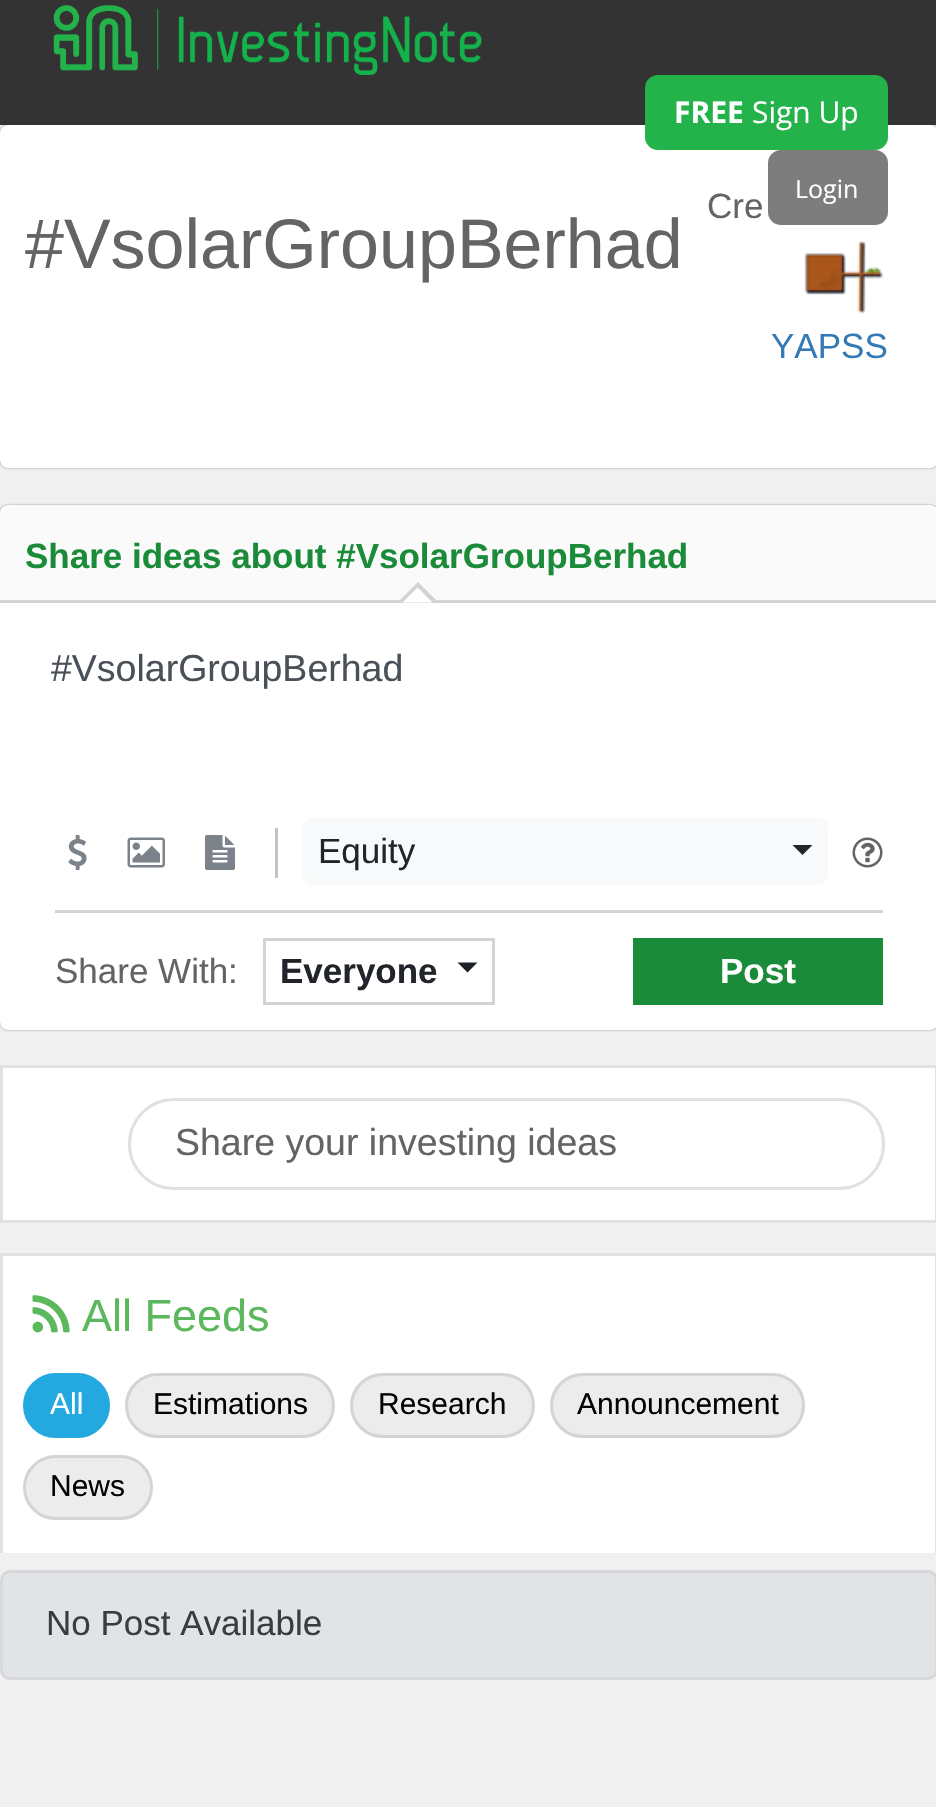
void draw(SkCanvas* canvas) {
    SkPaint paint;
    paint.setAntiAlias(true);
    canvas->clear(0xFFF0F0F0);
    paint.setColor(0xFF828282);
    paint.setMaskFilter(SkMaskFilter::MakeBlur(kNormal_SkBlurStyle, 1));
    canvas->drawRoundRect(SkRect::MakeXYWH(0, 125, 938, 343), 8, 8, paint);
    paint.setMaskFilter(nullptr);
    paint.setColor(0xFF333333);
    canvas->drawRect(SkRect::MakeXYWH(0, 0, 936, 125), paint);
    canvas->drawImageRect(SkImages::DeferredFromEncodedData(SkData::MakeFromFileName("img1.png")), SkRect::MakeXYWH(53, 5, 429, 70), SkSamplingOptions());
    paint.setColor(0xFFFFFFFF);
    canvas->drawRoundRect(SkRect::MakeXYWH(0, 125, 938, 343), 8, 8, paint);
    paint.setColor(0xFF24B24B);
    canvas->drawRoundRect(SkRect::MakeXYWH(645, 75, 243, 75), 13, 13, paint);
    SkFont font1(fontMgr->matchFamilyStyle("Open Sans", SkFontStyle::Bold()), 30);
    font1.setSubpixel(true);
    paint.setColor(0xFFFFFFFF);
    canvas->drawString("FREE", 674, 123, font1, paint);
    SkFont font2(fontMgr->matchFamilyStyle("Open Sans", SkFontStyle::Normal()), 30);
    font2.setSubpixel(true);
    canvas->drawString("Sign Up", 752, 123, font2, paint);
    paint.setColor(0xFF7D7D7D);
    canvas->drawRoundRect(SkRect::MakeXYWH(768, 150, 120, 75), 13, 13, paint);
    SkFont font3(fontMgr->matchFamilyStyle("Open Sans", SkFontStyle::Normal()), 25);
    font3.setSubpixel(true);
    paint.setColor(0xFFFFFFFF);
    canvas->drawString("Login", 795, 198, font3, paint);
    SkFont font4(fontMgr->matchFamilyStyle("Liberation Sans", SkFontStyle::Normal()), 70);
    font4.setSubpixel(true);
    paint.setColor(0xFF646464);
    canvas->drawString("#VsolarGroupBerhad", 25, 268, font4, paint);
    SkFont font5(fontMgr->matchFamilyStyle("Liberation Sans", SkFontStyle::Normal()), 35);
    font5.setSubpixel(true);
    canvas->drawString("Cre", 707, 218, font5, paint);
    canvas->drawImageRect(SkImages::DeferredFromEncodedData(SkData::MakeFromFileName("img2.png")), SkRect::MakeXYWH(804, 241, 79, 73), SkSamplingOptions());
    paint.setColor(0xFF337AB7);
    canvas->drawString("YAPSS", 771, 358, font5, paint);
    paint.setColor(0xFF828282);
    paint.setMaskFilter(SkMaskFilter::MakeBlur(kNormal_SkBlurStyle, 1));
    canvas->drawRoundRect(SkRect::MakeXYWH(0, 505, 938, 525), 8, 8, paint);
    paint.setMaskFilter(nullptr);
    paint.setColor(0xFFFFFFFF);
    canvas->drawRoundRect(SkRect::MakeXYWH(0, 505, 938, 525), 8, 8, paint);
    paint.setColor(0xFFFAFAFA);
    canvas->drawPath(SkPathBuilder().moveTo(13, 505).lineTo(925, 505).cubicTo(932, 505, 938, 511, 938, 518).lineTo(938, 603).lineTo(0, 603).lineTo(0, 518).cubicTo(0, 511, 6, 505, 13, 505).close().detach(), paint);
    paint.setColor(0xFFD3D3D3);
    canvas->drawRect(SkRect::MakeXYWH(0, 600, 936, 3), paint);
    SkFont font6(fontMgr->matchFamilyStyle("Liberation Sans", SkFontStyle::Bold()), 35);
    font6.setSubpixel(true);
    paint.setColor(0xFF1A8C39);
    canvas->drawString("Share ideas about #VsolarGroupBerhad", 25, 568, font6, paint);
    paint.setColor(0xFFD3D3D3);
    canvas->drawPath(SkPathBuilder().moveTo(438, 602).lineTo(398, 602).lineTo(418, 582).close().detach(), paint);
    paint.setColor(0xFFFFFFFF);
    canvas->drawPath(SkPathBuilder().moveTo(432.5f, 602.5f).lineTo(402.5f, 602.5f).lineTo(417.5f, 587.5f).close().detach(), paint);
    SkFont font7(fontMgr->matchFamilyStyle("Liberation Sans", SkFontStyle::Normal()), 37.5f);
    font7.setSubpixel(true);
    paint.setColor(0xFF495057);
    canvas->drawString("#VsolarGroupBerhad", 51, 681, font7, paint);
    paint.setColor(0xFFD3D3D3);
    canvas->drawRect(SkRect::MakeXYWH(55, 910, 828, 3), paint);
    canvas->drawImageRect(SkImages::DeferredFromEncodedData(SkData::MakeFromFileName("img3.png")), SkRect::MakeXYWH(68, 835, 19, 35), SkSamplingOptions());
    canvas->drawImageRect(SkImages::DeferredFromEncodedData(SkData::MakeFromFileName("img4.png")), SkRect::MakeXYWH(127, 837, 38, 31), SkSamplingOptions());
    canvas->drawImageRect(SkImages::DeferredFromEncodedData(SkData::MakeFromFileName("img5.png")), SkRect::MakeXYWH(205, 835, 30, 35), SkSamplingOptions());
    paint.setColor(0xFFC2C2C2);
    canvas->drawRect(SkRect::MakeXYWH(275, 828, 3, 50), paint);
    paint.setColor(0xFFF8F9FA);
    canvas->drawRoundRect(SkRect::MakeXYWH(303, 818, 525, 67), 10, 10, paint);
    paint.setColor(0xFF212529);
    canvas->drawString("Equity", 318, 863, font5, paint);
    canvas->drawPath(SkPathBuilder().moveTo(792.5f, 845).lineTo(812.5f, 845).lineTo(802.5f, 855).close().detach(), paint);
    canvas->drawImageRect(SkImages::DeferredFromEncodedData(SkData::MakeFromFileName("img6.png")), SkRect::MakeXYWH(852, 837, 31, 31), SkSamplingOptions());
    paint.setColor(0xFF646464);
    canvas->drawString("Share With:", 55, 983, font5, paint);
    paint.setStyle(SkPaint::kStroke_Style);
    paint.setStrokeWidth(3);
    paint.setColor(0xFFD3D3D3);
    canvas->drawRect(SkRect::MakeXYWH(264.5f, 939.5f, 229, 64), paint);
    paint.setStyle(SkPaint::kFill_Style);
    paint.setColor(0xFF212529);
    canvas->drawString("Everyone", 280, 983, font6, paint);
    paint.setColor(0xFF1D2129);
    canvas->drawPath(SkPathBuilder().moveTo(457.5f, 962.5f).lineTo(477.5f, 962.5f).lineTo(467.5f, 972.5f).close().detach(), paint);
    paint.setColor(0xFF1A8C39);
    canvas->drawRect(SkRect::MakeXYWH(633, 938, 250, 67), paint);
    paint.setColor(0xFFFFFFFF);
    canvas->drawString("Post", 720, 983, font6, paint);
    canvas->drawRect(SkRect::MakeXYWH(1.5f, 1066.5f, 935, 155), paint);
    paint.setStyle(SkPaint::kStroke_Style);
    paint.setColor(0xFFE1E1E1);
    canvas->drawRect(SkRect::MakeXYWH(1.5f, 1066.5f, 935, 155), paint);
    canvas->drawRoundRect(SkRect::MakeXYWH(129.5f, 1099.5f, 754, 89), 44.5f, 44.5f, paint);
    paint.setStyle(SkPaint::kFill_Style);
    paint.setColor(0xFF646464);
    canvas->drawString("Share your investing ideas", 175, 1155, font7, paint);
    paint.setColor(0xFFFFFFFF);
    canvas->drawRect(SkRect::MakeXYWH(3, 1256, 932, 297), paint);
    paint.setColor(0xFFE1E1E1);
    canvas->drawRect(SkRect::MakeXYWH(0, 1253, 936, 3), paint);
    canvas->drawRect(SkRect::MakeXYWH(935, 1253, 1, 300), paint);
    canvas->drawRect(SkRect::MakeXYWH(0, 1253, 3, 300), paint);
    canvas->drawImageRect(SkImages::DeferredFromEncodedData(SkData::MakeFromFileName("img7.png")), SkRect::MakeXYWH(32, 1295, 38, 38), SkSamplingOptions());
    SkFont font8(fontMgr->matchFamilyStyle("Liberation Sans", SkFontStyle::Normal()), 45);
    font8.setSubpixel(true);
    paint.setColor(0xFF5CB85C);
    canvas->drawString("All Feeds", 82, 1331, font8, paint);
    paint.setColor(0xFF24A8E0);
    canvas->drawRoundRect(SkRect::MakeXYWH(24.5f, 1374.5f, 84, 62), 31, 31, paint);
    paint.setStyle(SkPaint::kStroke_Style);
    canvas->drawRoundRect(SkRect::MakeXYWH(24.5f, 1374.5f, 84, 62), 31, 31, paint);
    SkFont font9(fontMgr->matchFamilyStyle("Liberation Sans", SkFontStyle::Normal()), 30);
    font9.setSubpixel(true);
    paint.setStyle(SkPaint::kFill_Style);
    paint.setColor(0xFFFFFFFF);
    canvas->drawString("All", 50, 1414, font9, paint);
    paint.setColor(0xFFECECEC);
    canvas->drawRoundRect(SkRect::MakeXYWH(126.5f, 1374.5f, 207, 62), 31, 31, paint);
    paint.setStyle(SkPaint::kStroke_Style);
    paint.setColor(0xFFD4D4D4);
    canvas->drawRoundRect(SkRect::MakeXYWH(126.5f, 1374.5f, 207, 62), 31, 31, paint);
    paint.setStyle(SkPaint::kFill_Style);
    paint.setColor(0xFF030303);
    canvas->drawString("Estimations", 153, 1414, font9, paint);
    paint.setColor(0xFFECECEC);
    canvas->drawRoundRect(SkRect::MakeXYWH(351.5f, 1374.5f, 182, 62), 31, 31, paint);
    paint.setStyle(SkPaint::kStroke_Style);
    paint.setColor(0xFFD4D4D4);
    canvas->drawRoundRect(SkRect::MakeXYWH(351.5f, 1374.5f, 182, 62), 31, 31, paint);
    paint.setStyle(SkPaint::kFill_Style);
    paint.setColor(0xFF030303);
    canvas->drawString("Research", 378, 1414, font9, paint);
    paint.setColor(0xFFECECEC);
    canvas->drawRoundRect(SkRect::MakeXYWH(551.5f, 1374.5f, 252, 62), 31, 31, paint);
    paint.setStyle(SkPaint::kStroke_Style);
    paint.setColor(0xFFD4D4D4);
    canvas->drawRoundRect(SkRect::MakeXYWH(551.5f, 1374.5f, 252, 62), 31, 31, paint);
    paint.setStyle(SkPaint::kFill_Style);
    paint.setColor(0xFF030303);
    canvas->drawString("Announcement", 577, 1414, font9, paint);
    paint.setColor(0xFFECECEC);
    canvas->drawRoundRect(SkRect::MakeXYWH(24.5f, 1456.5f, 127, 62), 31, 31, paint);
    paint.setStyle(SkPaint::kStroke_Style);
    paint.setColor(0xFFD4D4D4);
    canvas->drawRoundRect(SkRect::MakeXYWH(24.5f, 1456.5f, 127, 62), 31, 31, paint);
    paint.setStyle(SkPaint::kFill_Style);
    paint.setColor(0xFF030303);
    canvas->drawString("News", 50, 1496, font9, paint);
    paint.setColor(0xFFE2E3E5);
    canvas->drawRoundRect(SkRect::MakeXYWH(1.5f, 1571.5f, 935, 107), 8.5f, 8.5f, paint);
    paint.setStyle(SkPaint::kStroke_Style);
    paint.setColor(0xFFD6D8DB);
    canvas->drawRoundRect(SkRect::MakeXYWH(1.5f, 1571.5f, 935, 107), 8.5f, 8.5f, paint);
    paint.setStyle(SkPaint::kFill_Style);
    paint.setColor(0xFF383D41);
    canvas->drawString("No Post Available", 46, 1635, font5, paint);
}
